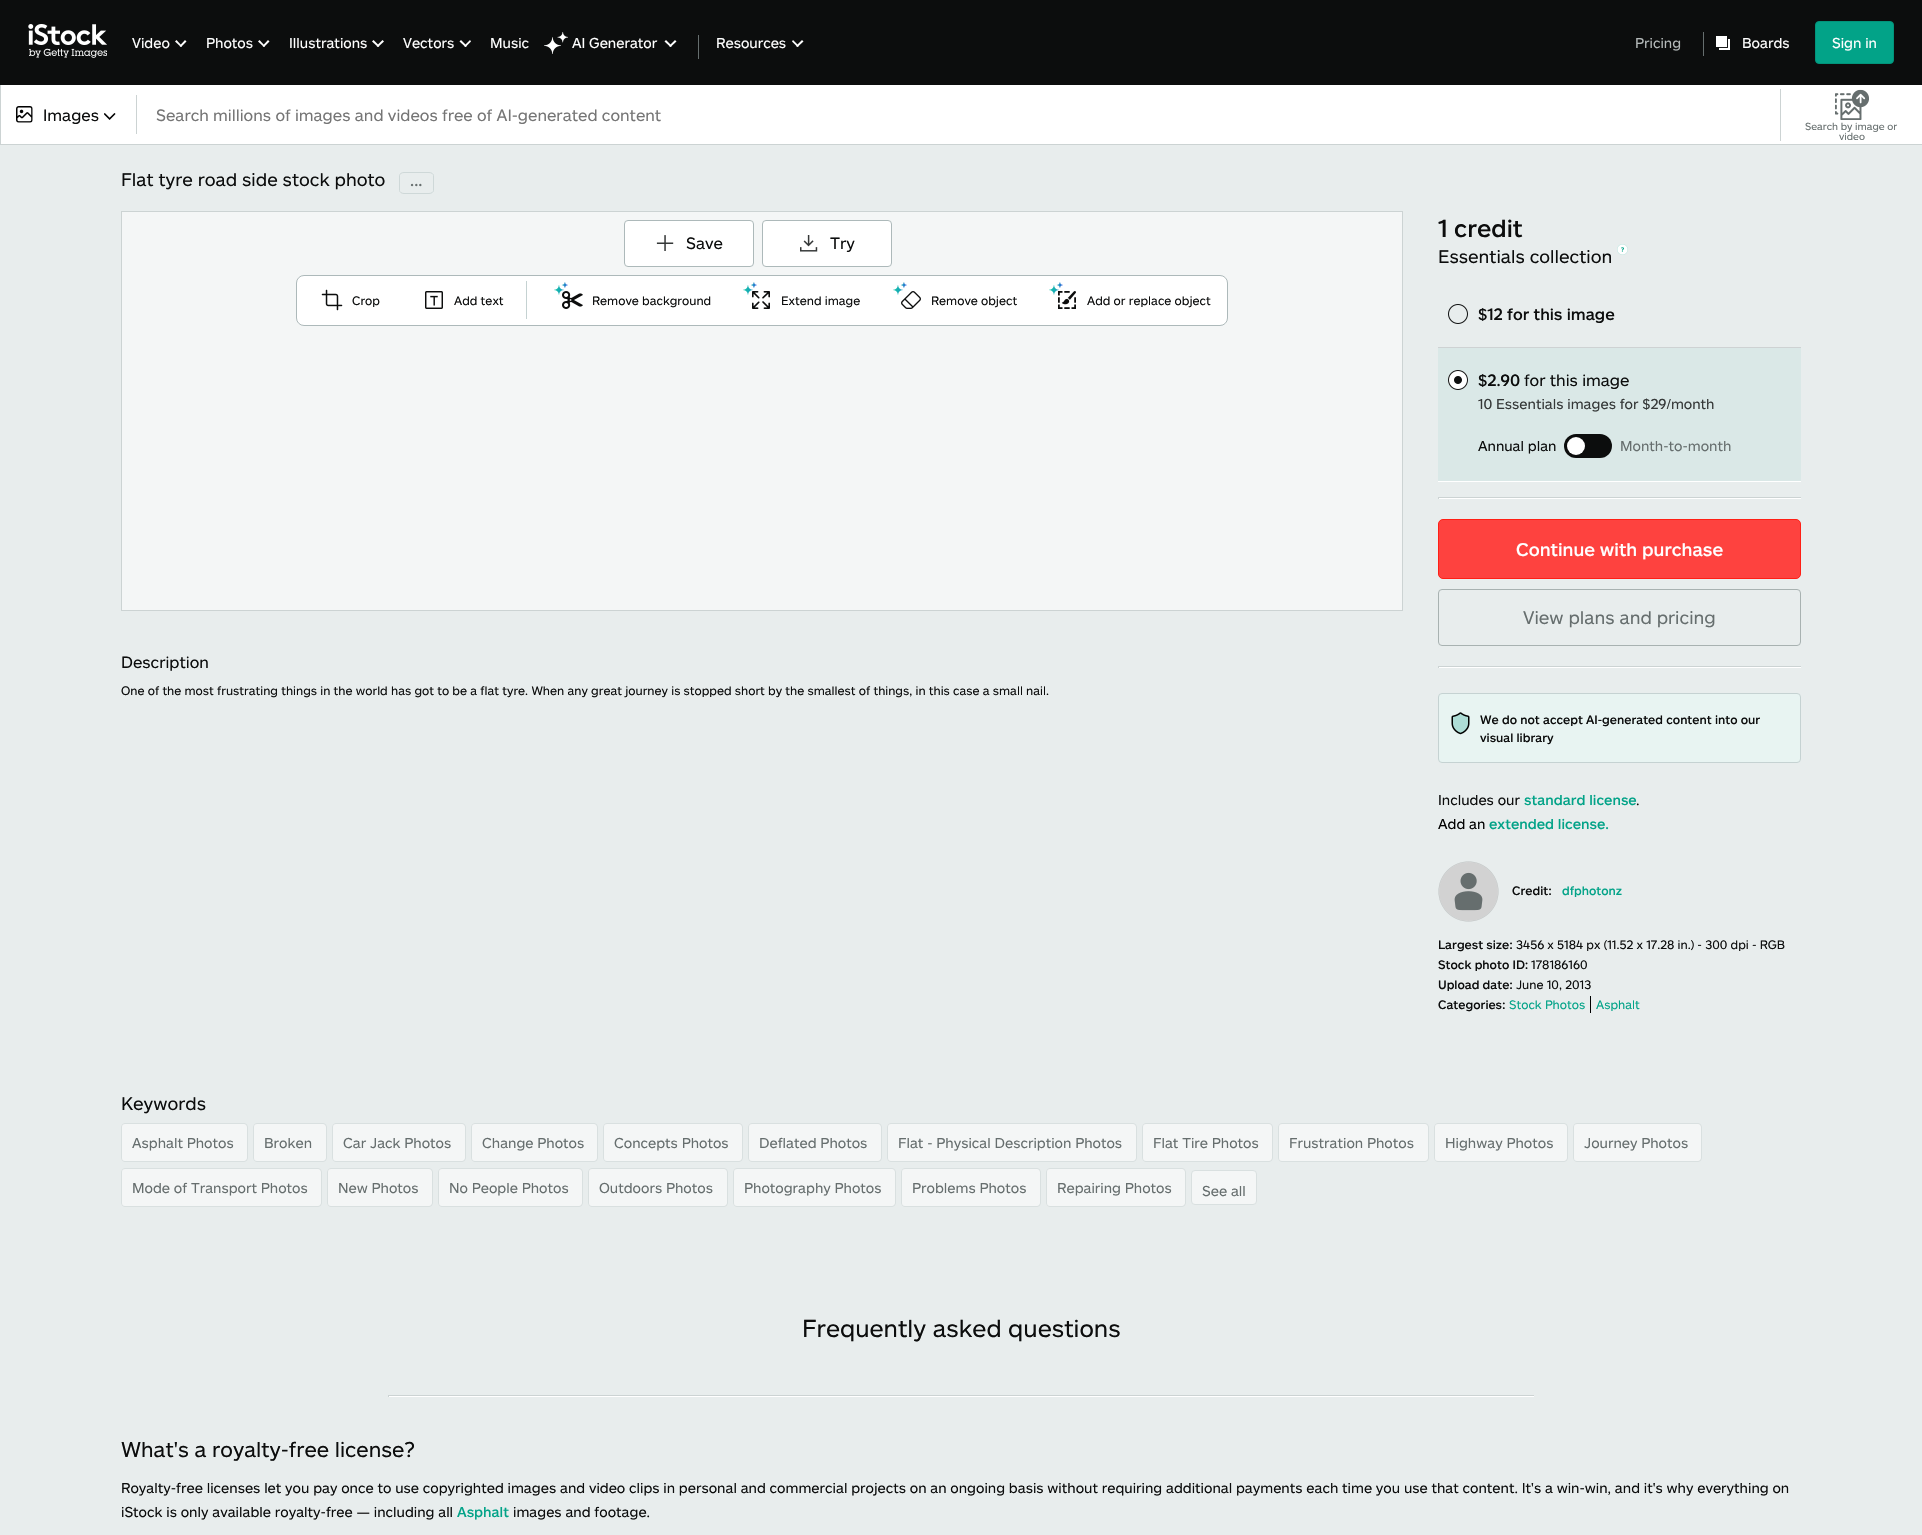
void draw(SkCanvas* canvas) {
    SkPaint paint;
    paint.setAntiAlias(true);
    canvas->clear(0xFF0C0D0D);
    canvas->drawImageRect(SkImages::DeferredFromEncodedData(SkData::MakeFromFileName("img1.png")), SkRect::MakeXYWH(28, 24, 79, 34), SkSamplingOptions());
    SkFont font1(fontMgr->matchFamilyStyle("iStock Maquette", SkFontStyle::Normal()), 14);
    font1.setSubpixel(true);
    paint.setColor(0xFFFFFFFF);
    canvas->drawString("Video", 132, 48, font1, paint);
    canvas->drawPath(SkPathBuilder().moveTo(179.5f, 46).lineTo(185, 40).lineTo(186.5f, 41.5f).lineTo(181, 47).close().detach(), paint);
    canvas->drawPath(SkPathBuilder().moveTo(175, 41.5f).lineTo(176.5f, 40).lineTo(182, 46).lineTo(181, 47).close().detach(), paint);
    canvas->drawString("Photos", 206, 48, font1, paint);
    canvas->drawPath(SkPathBuilder().moveTo(262.5f, 46).lineTo(268, 40).lineTo(269.5f, 41.5f).lineTo(264, 47).close().detach(), paint);
    canvas->drawPath(SkPathBuilder().moveTo(258, 41.5f).lineTo(259.5f, 40).lineTo(265, 46).lineTo(264, 47).close().detach(), paint);
    canvas->drawString("Illustrations", 289, 48, font1, paint);
    canvas->drawPath(SkPathBuilder().moveTo(376.5f, 46).lineTo(382.5f, 40).lineTo(384, 41.5f).lineTo(378, 47).close().detach(), paint);
    canvas->drawPath(SkPathBuilder().moveTo(372, 41.5f).lineTo(373.5f, 40).lineTo(379.5f, 46).lineTo(378, 47).close().detach(), paint);
    canvas->drawString("Vectors", 403, 48, font1, paint);
    canvas->drawPath(SkPathBuilder().moveTo(464, 46).lineTo(470, 40).lineTo(471, 41.5f).lineTo(465.5f, 47).close().detach(), paint);
    canvas->drawPath(SkPathBuilder().moveTo(459.5f, 41.5f).lineTo(461, 40).lineTo(467, 46).lineTo(465.5f, 47).close().detach(), paint);
    canvas->drawString("Music", 490, 48, font1, paint);
    canvas->drawImageRect(SkImages::DeferredFromEncodedData(SkData::MakeFromFileName("img2.png")), SkRect::MakeXYWH(544, 32, 24, 22), SkSamplingOptions());
    canvas->drawString("AI Generator", 572, 48, font1, paint);
    canvas->drawPath(SkPathBuilder().moveTo(669, 46).lineTo(675, 40).lineTo(676.5f, 41.5f).lineTo(670.5f, 47).close().detach(), paint);
    canvas->drawPath(SkPathBuilder().moveTo(664.5f, 41.5f).lineTo(666, 40).lineTo(672, 46).lineTo(670.5f, 47).close().detach(), paint);
    paint.setColor(0xFF666E6E);
    canvas->drawRect(SkRect::MakeXYWH(698, 35, 1, 24), paint);
    paint.setColor(0xFFFFFFFF);
    canvas->drawString("Resources", 716, 48, font1, paint);
    canvas->drawPath(SkPathBuilder().moveTo(796, 46).lineTo(802, 40).lineTo(803.5f, 41.5f).lineTo(797.5f, 47).close().detach(), paint);
    canvas->drawPath(SkPathBuilder().moveTo(792, 41.5f).lineTo(793, 40).lineTo(799, 46).lineTo(797.5f, 47).close().detach(), paint);
    paint.setColor(0xFFB4B9B9);
    canvas->drawString("Pricing", 1635, 48, font1, paint);
    paint.setColor(0xFF666E6E);
    canvas->drawRect(SkRect::MakeXYWH(1703, 32, 1, 24), paint);
    canvas->drawImageRect(SkImages::DeferredFromEncodedData(SkData::MakeFromFileName("img3.png")), SkRect::MakeXYWH(1716, 36, 14, 14), SkSamplingOptions());
    paint.setColor(0xFFFFFFFF);
    canvas->drawString("Boards", 1742, 48, font1, paint);
    paint.setColor(0xFF02A388);
    canvas->drawRoundRect(SkRect::MakeXYWH(1815.5f, 21.5f, 78, 42), 3.5f, 3.5f, paint);
    paint.setStyle(SkPaint::kStroke_Style);
    paint.setStrokeWidth(1);
    paint.setColor(0xFF02937A);
    canvas->drawRoundRect(SkRect::MakeXYWH(1815.5f, 21.5f, 78, 42), 3.5f, 3.5f, paint);
    paint.setStyle(SkPaint::kFill_Style);
    paint.setColor(0xFFFFFFFF);
    canvas->drawString("Sign in", 1832, 48, font1, paint);
    paint.setColor(0xFFE8EDED);
    canvas->drawRect(SkRect::MakeXYWH(0, 145, 1922, 1390), paint);
    paint.setColor(0xFFCCD3D3);
    canvas->drawRect(SkRect::MakeXYWH(0, 144, 1922, 1), paint);
    paint.setColor(0xFFFFFFFF);
    canvas->drawRect(SkRect::MakeXYWH(1, 85, 1921, 59), paint);
    paint.setColor(0xFFCCD3D3);
    canvas->drawRect(SkRect::MakeXYWH(0, 85, 1, 59), paint);
    canvas->drawImageRect(SkImages::DeferredFromEncodedData(SkData::MakeFromFileName("img4.png")), SkRect::MakeXYWH(16, 106, 17, 17), SkSamplingOptions());
    SkFont font2(fontMgr->matchFamilyStyle("iStock Maquette", SkFontStyle::Normal()), 16);
    font2.setSubpixel(true);
    paint.setColor(0xFF0C0D0D);
    canvas->drawString("Images", 43, 121, font2, paint);
    canvas->drawImageRect(SkImages::DeferredFromEncodedData(SkData::MakeFromFileName("img5.png")), SkRect::MakeXYWH(104, 113, 12, 7), SkSamplingOptions());
    paint.setColor(0xFFCCD3D3);
    canvas->drawRect(SkRect::MakeXYWH(136, 95, 1, 39), paint);
    paint.setColor(0xFF757575);
    canvas->drawString("Search millions of images and videos free of AI-generated content", 156, 121, font2, paint);
    paint.setColor(0xFFCCD3D3);
    canvas->drawRect(SkRect::MakeXYWH(1780, 89, 1, 52), paint);
    canvas->drawImageRect(SkImages::DeferredFromEncodedData(SkData::MakeFromFileName("img6.png")), SkRect::MakeXYWH(1835, 89, 34, 31), SkSamplingOptions());
    SkFont font3(fontMgr->matchFamilyStyle("iStock Maquette", SkFontStyle::Normal()), 10);
    font3.setSubpixel(true);
    paint.setColor(0xFF666E6E);
    canvas->drawString("Search by image or", 1805, 130, font3, paint);
    canvas->drawString("video", 1839, 140, font3, paint);
    SkFont font4(fontMgr->matchFamilyStyle("iStock Maquette", SkFontStyle::Normal()), 18);
    font4.setSubpixel(true);
    paint.setColor(0xFF0C0D0D);
    canvas->drawString("Flat tyre road side stock photo", 121, 186, font4, paint);
    paint.setStyle(SkPaint::kStroke_Style);
    paint.setColor(0xFFCED8D8);
    canvas->drawPath(SkPathBuilder().moveTo(404, 172.5f).lineTo(429, 172.5f).cubicTo(431.5f, 172.5f, 433.5f, 174, 433.5f, 175.5f).lineTo(433.5f, 190.5f).cubicTo(433.5f, 192, 431.5f, 193.5f, 429, 193.5f).lineTo(404, 193.5f).cubicTo(401.5f, 193.5f, 399.5f, 192, 399.5f, 190.5f).lineTo(399.5f, 175.5f).cubicTo(399.5f, 174, 401.5f, 172.5f, 404, 172.5f).close().detach(), paint);
    SkFont font5(fontMgr->matchFamilyStyle("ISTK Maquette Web", SkFontStyle(500, SkFontStyle::kNormal_Width, SkFontStyle::kUpright_Slant)), 16);
    font5.setSubpixel(true);
    paint.setStyle(SkPaint::kFill_Style);
    paint.setColor(0xFF666E6E);
    canvas->drawString("...", 410, 186, font5, paint);
    paint.setColor(0xFFF4F6F6);
    canvas->drawRect(SkRect::MakeXYWH(121.5f, 211.5f, 1281, 399), paint);
    paint.setStyle(SkPaint::kStroke_Style);
    paint.setColor(0xFFCCD3D3);
    canvas->drawRect(SkRect::MakeXYWH(121.5f, 211.5f, 1281, 399), paint);
    paint.setStyle(SkPaint::kFill_Style);
    paint.setColor(0xFFFFFFFF);
    canvas->drawRoundRect(SkRect::MakeXYWH(624.5f, 220.5f, 129, 46), 3.5f, 3.5f, paint);
    paint.setStyle(SkPaint::kStroke_Style);
    paint.setColor(0xFFADB9BA);
    canvas->drawRoundRect(SkRect::MakeXYWH(624.5f, 220.5f, 129, 46), 3.5f, 3.5f, paint);
    canvas->drawImageRect(SkImages::DeferredFromEncodedData(SkData::MakeFromFileName("img7.png")), SkRect::MakeXYWH(656, 235, 18, 16), SkSamplingOptions());
    paint.setStyle(SkPaint::kFill_Style);
    paint.setColor(0xFF0C0D0D);
    canvas->drawString("Save", 686, 249, font2, paint);
    paint.setColor(0xFFFFFFFF);
    canvas->drawRoundRect(SkRect::MakeXYWH(762.5f, 220.5f, 129, 46), 3.5f, 3.5f, paint);
    paint.setStyle(SkPaint::kStroke_Style);
    paint.setColor(0xFFADB9BA);
    canvas->drawRoundRect(SkRect::MakeXYWH(762.5f, 220.5f, 129, 46), 3.5f, 3.5f, paint);
    canvas->drawImageRect(SkImages::DeferredFromEncodedData(SkData::MakeFromFileName("img8.png")), SkRect::MakeXYWH(800, 235, 18, 17), SkSamplingOptions());
    paint.setStyle(SkPaint::kFill_Style);
    paint.setColor(0xFF0C0D0D);
    canvas->drawString("Try", 830, 249, font2, paint);
    paint.setColor(0xFFFFFFFF);
    canvas->drawRoundRect(SkRect::MakeXYWH(296.5f, 275.5f, 931, 50), 7.5f, 7.5f, paint);
    paint.setStyle(SkPaint::kStroke_Style);
    paint.setColor(0xFFADB9BA);
    canvas->drawRoundRect(SkRect::MakeXYWH(296.5f, 275.5f, 931, 50), 7.5f, 7.5f, paint);
    canvas->drawImageRect(SkImages::DeferredFromEncodedData(SkData::MakeFromFileName("img9.png")), SkRect::MakeXYWH(321, 289, 22, 22), SkSamplingOptions());
    SkFont font6(fontMgr->matchFamilyStyle("iStock Maquette", SkFontStyle::Normal()), 12);
    font6.setSubpixel(true);
    paint.setStyle(SkPaint::kFill_Style);
    paint.setColor(0xFF0C0D0D);
    canvas->drawString("Crop", 352, 305, font6, paint);
    canvas->drawImageRect(SkImages::DeferredFromEncodedData(SkData::MakeFromFileName("img10.png")), SkRect::MakeXYWH(425, 291, 18, 18), SkSamplingOptions());
    canvas->drawString("Add text", 454, 305, font6, paint);
    paint.setColor(0xFFC5D2D2);
    canvas->drawRect(SkRect::MakeXYWH(526, 281, 1, 38), paint);
    canvas->drawImageRect(SkImages::DeferredFromEncodedData(SkData::MakeFromFileName("img11.png")), SkRect::MakeXYWH(554, 282, 29, 27), SkSamplingOptions());
    paint.setColor(0xFF0C0D0D);
    canvas->drawString("Remove background", 592, 305, font6, paint);
    canvas->drawImageRect(SkImages::DeferredFromEncodedData(SkData::MakeFromFileName("img12.png")), SkRect::MakeXYWH(743, 282, 27, 27), SkSamplingOptions());
    canvas->drawString("Extend image", 781, 305, font6, paint);
    canvas->drawImageRect(SkImages::DeferredFromEncodedData(SkData::MakeFromFileName("img13.png")), SkRect::MakeXYWH(893, 282, 28, 27), SkSamplingOptions());
    canvas->drawString("Remove object", 931, 305, font6, paint);
    canvas->drawImageRect(SkImages::DeferredFromEncodedData(SkData::MakeFromFileName("img14.png")), SkRect::MakeXYWH(1049, 282, 27, 27), SkSamplingOptions());
    canvas->drawString("Add or replace object", 1087, 305, font6, paint);
    canvas->drawString("Description", 121, 668, font2, paint);
    canvas->drawString("One of the most frustrating things in the world has got to be a flat tyre. When any great journey is stopped short by the smallest of things, in this case a small nail.", 121, 695, font6, paint);
    SkFont font7(fontMgr->matchFamilyStyle("ISTK Maquette Web", SkFontStyle(500, SkFontStyle::kNormal_Width, SkFontStyle::kUpright_Slant)), 24);
    font7.setSubpixel(true);
    canvas->drawString("1 credit", 1438, 237, font7, paint);
    canvas->drawString("Essentials collection", 1438, 263, font4, paint);
    canvas->drawImageRect(SkImages::DeferredFromEncodedData(SkData::MakeFromFileName("img15.png")), SkRect::MakeXYWH(1617, 244, 11, 11), SkSamplingOptions());
    canvas->drawImageRect(SkImages::DeferredFromEncodedData(SkData::MakeFromFileName("img16.png")), SkRect::MakeXYWH(1448, 304, 20, 20), SkSamplingOptions());
    canvas->drawString("$12 for this image", 1478, 320, font5, paint);
    paint.setColor(0xFFDAE8E7);
    canvas->drawRect(SkRect::MakeXYWH(1438, 348, 363, 133), paint);
    paint.setColor(0xFFCED2D3);
    canvas->drawRect(SkRect::MakeXYWH(1438, 347, 363, 1), paint);
    paint.setColor(0xFFFFFFFF);
    canvas->drawRect(SkRect::MakeXYWH(1438, 481, 363, 1), paint);
    canvas->drawImageRect(SkImages::DeferredFromEncodedData(SkData::MakeFromFileName("img17.png")), SkRect::MakeXYWH(1448, 370, 20, 20), SkSamplingOptions());
    paint.setColor(0xFF0C0D0D);
    canvas->drawString("$2.90", 1478, 386, font5, paint);
    canvas->drawString("for this image", 1524, 386, font2, paint);
    paint.setColor(0xFF353838);
    canvas->drawString("10 Essentials images for $29/month", 1478, 409, font1, paint);
    paint.setColor(0xFF0C0D0D);
    canvas->drawString("Annual plan", 1478, 451, font1, paint);
    canvas->drawRoundRect(SkRect::MakeXYWH(1564, 434, 48, 24), 12, 12, paint);
    paint.setColor(0xFFFFFFFF);
    canvas->drawCircle(1576, 446, 9, paint);
    paint.setColor(0xFF666E6E);
    canvas->drawString("Month-to-month", 1620, 451, font1, paint);
    paint.setColor(0xFFCCD3D3);
    canvas->drawRect(SkRect::MakeXYWH(1438, 497, 363, 1), paint);
    canvas->drawRect(SkRect::MakeXYWH(1800, 497, 1, 2), paint);
    paint.setColor(0xFFFFFFFF);
    canvas->drawRect(SkRect::MakeXYWH(1438, 498, 363, 1), paint);
    paint.setColor(0xFFCCD3D3);
    canvas->drawRect(SkRect::MakeXYWH(1438, 497, 1, 2), paint);
    paint.setColor(0xFFFE423F);
    canvas->drawRoundRect(SkRect::MakeXYWH(1438.5f, 519.5f, 362, 59), 4.5f, 4.5f, paint);
    paint.setStyle(SkPaint::kStroke_Style);
    paint.setColor(0xFFFF1F15);
    canvas->drawRoundRect(SkRect::MakeXYWH(1438.5f, 519.5f, 362, 59), 4.5f, 4.5f, paint);
    SkFont font8(fontMgr->matchFamilyStyle("ISTK Maquette Web", SkFontStyle(500, SkFontStyle::kNormal_Width, SkFontStyle::kUpright_Slant)), 18);
    font8.setSubpixel(true);
    paint.setStyle(SkPaint::kFill_Style);
    paint.setColor(0xFFFFFFFF);
    canvas->drawString("Continue with purchase", 1516, 556, font8, paint);
    paint.setStyle(SkPaint::kStroke_Style);
    paint.setColor(0xFFA8B2B1);
    canvas->drawRoundRect(SkRect::MakeXYWH(1438.5f, 589.5f, 362, 56), 3.5f, 3.5f, paint);
    paint.setStyle(SkPaint::kFill_Style);
    paint.setColor(0xFF666E6E);
    canvas->drawString("View plans and pricing", 1523, 624, font4, paint);
    paint.setColor(0xFFCCD3D3);
    canvas->drawRect(SkRect::MakeXYWH(1438, 666, 363, 1), paint);
    canvas->drawRect(SkRect::MakeXYWH(1800, 666, 1, 2), paint);
    paint.setColor(0xFFFFFFFF);
    canvas->drawRect(SkRect::MakeXYWH(1438, 667, 363, 1), paint);
    paint.setColor(0xFFCCD3D3);
    canvas->drawRect(SkRect::MakeXYWH(1438, 666, 1, 2), paint);
    paint.setColor(0xFFE8F4F2);
    canvas->drawRoundRect(SkRect::MakeXYWH(1438.5f, 693.5f, 362, 69), 3.5f, 3.5f, paint);
    paint.setStyle(SkPaint::kStroke_Style);
    paint.setColor(0xFFC5D2D2);
    canvas->drawRoundRect(SkRect::MakeXYWH(1438.5f, 693.5f, 362, 69), 3.5f, 3.5f, paint);
    canvas->drawImageRect(SkImages::DeferredFromEncodedData(SkData::MakeFromFileName("img18.png")), SkRect::MakeXYWH(1451, 712, 19, 23), SkSamplingOptions());
    SkFont font9(fontMgr->matchFamilyStyle("ISTK Maquette Web", SkFontStyle(500, SkFontStyle::kNormal_Width, SkFontStyle::kUpright_Slant)), 12);
    font9.setSubpixel(true);
    paint.setStyle(SkPaint::kFill_Style);
    paint.setColor(0xFF0C0D0D);
    canvas->drawString("We do not accept AI-generated content into our", 1480, 724, font9, paint);
    canvas->drawString("visual library", 1480, 742, font9, paint);
    canvas->drawString("Includes our", 1438, 805, font1, paint);
    SkFont font10(fontMgr->matchFamilyStyle("ISTK Maquette Web", SkFontStyle(500, SkFontStyle::kNormal_Width, SkFontStyle::kUpright_Slant)), 14);
    font10.setSubpixel(true);
    paint.setColor(0xFF02A388);
    canvas->drawString("standard license", 1524, 805, font10, paint);
    paint.setColor(0xFF0C0D0D);
    canvas->drawString(".", 1636, 805, font1, paint);
    paint.setColor(0xFF000000);
    canvas->drawString("Add an", 1438, 829, font1, paint);
    paint.setColor(0xFF02A388);
    canvas->drawString("extended license.", 1489, 829, font10, paint);
    canvas->drawImageRect(SkImages::DeferredFromEncodedData(SkData::MakeFromFileName("img19.png")), SkRect::MakeXYWH(1438, 861, 61, 61), SkSamplingOptions());
    paint.setColor(0xFF0C0D0D);
    canvas->drawString("Credit:", 1512, 895, font9, paint);
    paint.setColor(0xFF02A388);
    canvas->drawString("dfphotonz", 1562, 895, font9, paint);
    paint.setColor(0xFF0C0D0D);
    canvas->drawString("Largest size:", 1438, 949, font9, paint);
    canvas->drawString("3456 x 5184 px (11.52 x 17.28 in.) - 300 dpi - RGB", 1516, 949, font6, paint);
    canvas->drawString("Stock photo ID:", 1438, 969, font9, paint);
    canvas->drawString("178186160", 1531, 969, font6, paint);
    canvas->drawString("Upload date:", 1438, 989, font9, paint);
    canvas->drawString("June 10, 2013", 1516, 989, font6, paint);
    canvas->drawString("Categories:", 1438, 1009, font9, paint);
    paint.setColor(0xFF000000);
    canvas->drawRect(SkRect::MakeXYWH(1590, 996, 1, 17), paint);
    paint.setColor(0xFF02A388);
    canvas->drawString("Stock Photos", 1509, 1009, font6, paint);
    canvas->drawString("Asphalt", 1596, 1009, font6, paint);
    paint.setColor(0xFF0C0D0D);
    canvas->drawString("Keywords", 121, 1110, font4, paint);
    paint.setColor(0xFFF4F6F6);
    canvas->drawPath(SkPathBuilder().moveTo(125, 1123).lineTo(234, 1123).lineTo(234, 1162).lineTo(125, 1162).cubicTo(123, 1162, 121, 1160, 121, 1158).lineTo(121, 1127).cubicTo(121, 1125, 123, 1123, 125, 1123).close().detach(), paint);
    paint.setColor(0xFFD9E0E0);
    canvas->drawPath(SkPathBuilder(SkPathFillType::kEvenOdd).moveTo(125, 1123).lineTo(234, 1123).lineTo(234, 1162).lineTo(125, 1162).cubicTo(123, 1162, 121, 1160, 121, 1158).lineTo(121, 1127).cubicTo(121, 1125, 123, 1123, 125, 1123).close().moveTo(125, 1124).lineTo(234, 1124).lineTo(234, 1161).lineTo(125, 1161).cubicTo(123, 1161, 122, 1160, 122, 1158).lineTo(122, 1127).cubicTo(122, 1125, 123, 1124, 125, 1124).close().detach(), paint);
    paint.setColor(0xFF666E6E);
    canvas->drawString("Asphalt Photos", 132, 1148, font1, paint);
    paint.setColor(0xFFF4F6F6);
    canvas->drawPath(SkPathBuilder().moveTo(234, 1123).lineTo(244, 1123).cubicTo(246, 1123, 248, 1125, 248, 1127).lineTo(248, 1158).cubicTo(248, 1160, 246, 1162, 244, 1162).lineTo(234, 1162).close().detach(), paint);
    paint.setColor(0xFFD9E0E0);
    canvas->drawPath(SkPathBuilder(SkPathFillType::kEvenOdd).moveTo(234, 1123).lineTo(244, 1123).cubicTo(246, 1123, 248, 1125, 248, 1127).lineTo(248, 1158).cubicTo(248, 1160, 246, 1162, 244, 1162).lineTo(234, 1162).close().moveTo(234, 1124).lineTo(244, 1124).cubicTo(245.5f, 1124, 247, 1125.5f, 247, 1127).lineTo(247, 1158).cubicTo(247, 1159.5f, 245.5f, 1161, 244, 1161).lineTo(234, 1161).close().detach(), paint);
    paint.setColor(0xFFF4F6F6);
    canvas->drawPath(SkPathBuilder().moveTo(257, 1123).lineTo(312, 1123).lineTo(312, 1162).lineTo(257, 1162).cubicTo(255, 1162, 253, 1160, 253, 1158).lineTo(253, 1127).cubicTo(253, 1125, 255, 1123, 257, 1123).close().detach(), paint);
    paint.setColor(0xFFD9E0E0);
    canvas->drawPath(SkPathBuilder(SkPathFillType::kEvenOdd).moveTo(257, 1123).lineTo(312, 1123).lineTo(312, 1162).lineTo(257, 1162).cubicTo(255, 1162, 253, 1160, 253, 1158).lineTo(253, 1127).cubicTo(253, 1125, 255, 1123, 257, 1123).close().moveTo(257, 1124).lineTo(312, 1124).lineTo(312, 1161).lineTo(257, 1161).cubicTo(255, 1161, 254, 1160, 254, 1158).lineTo(254, 1127).cubicTo(254, 1125, 255, 1124, 257, 1124).close().detach(), paint);
    paint.setColor(0xFF666E6E);
    canvas->drawString("Broken", 264, 1148, font1, paint);
    paint.setColor(0xFFF4F6F6);
    canvas->drawPath(SkPathBuilder().moveTo(312, 1123).lineTo(323, 1123).cubicTo(325, 1123, 327, 1125, 327, 1127).lineTo(327, 1158).cubicTo(327, 1160, 325, 1162, 323, 1162).lineTo(312, 1162).close().detach(), paint);
    paint.setColor(0xFFD9E0E0);
    canvas->drawPath(SkPathBuilder(SkPathFillType::kEvenOdd).moveTo(312, 1123).lineTo(323, 1123).cubicTo(325, 1123, 327, 1125, 327, 1127).lineTo(327, 1158).cubicTo(327, 1160, 325, 1162, 323, 1162).lineTo(312, 1162).close().moveTo(312, 1124).lineTo(323, 1124).cubicTo(324.5f, 1124, 326, 1125.5f, 326, 1127).lineTo(326, 1158).cubicTo(326, 1159.5f, 324.5f, 1161, 323, 1161).lineTo(312, 1161).close().detach(), paint);
    paint.setColor(0xFFF4F6F6);
    canvas->drawPath(SkPathBuilder().moveTo(336, 1123).lineTo(451, 1123).lineTo(451, 1162).lineTo(336, 1162).cubicTo(334, 1162, 332, 1160, 332, 1158).lineTo(332, 1127).cubicTo(332, 1125, 334, 1123, 336, 1123).close().detach(), paint);
    paint.setColor(0xFFD9E0E0);
    canvas->drawPath(SkPathBuilder(SkPathFillType::kEvenOdd).moveTo(336, 1123).lineTo(451, 1123).lineTo(451, 1162).lineTo(336, 1162).cubicTo(334, 1162, 332, 1160, 332, 1158).lineTo(332, 1127).cubicTo(332, 1125, 334, 1123, 336, 1123).close().moveTo(336, 1124).lineTo(451, 1124).lineTo(451, 1161).lineTo(336, 1161).cubicTo(334, 1161, 333, 1160, 333, 1158).lineTo(333, 1127).cubicTo(333, 1125, 334, 1124, 336, 1124).close().detach(), paint);
    paint.setColor(0xFF666E6E);
    canvas->drawString("Car Jack Photos", 343, 1148, font1, paint);
    paint.setColor(0xFFF4F6F6);
    canvas->drawPath(SkPathBuilder().moveTo(451, 1123).lineTo(462, 1123).cubicTo(464, 1123, 466, 1125, 466, 1127).lineTo(466, 1158).cubicTo(466, 1160, 464, 1162, 462, 1162).lineTo(451, 1162).close().detach(), paint);
    paint.setColor(0xFFD9E0E0);
    canvas->drawPath(SkPathBuilder(SkPathFillType::kEvenOdd).moveTo(451, 1123).lineTo(462, 1123).cubicTo(464, 1123, 466, 1125, 466, 1127).lineTo(466, 1158).cubicTo(466, 1160, 464, 1162, 462, 1162).lineTo(451, 1162).close().moveTo(451, 1124).lineTo(462, 1124).cubicTo(463.5f, 1124, 465, 1125.5f, 465, 1127).lineTo(465, 1158).cubicTo(465, 1159.5f, 463.5f, 1161, 462, 1161).lineTo(451, 1161).close().detach(), paint);
    paint.setColor(0xFFF4F6F6);
    canvas->drawPath(SkPathBuilder().moveTo(475, 1123).lineTo(584, 1123).lineTo(584, 1162).lineTo(475, 1162).cubicTo(473, 1162, 471, 1160, 471, 1158).lineTo(471, 1127).cubicTo(471, 1125, 473, 1123, 475, 1123).close().detach(), paint);
    paint.setColor(0xFFD9E0E0);
    canvas->drawPath(SkPathBuilder(SkPathFillType::kEvenOdd).moveTo(475, 1123).lineTo(584, 1123).lineTo(584, 1162).lineTo(475, 1162).cubicTo(473, 1162, 471, 1160, 471, 1158).lineTo(471, 1127).cubicTo(471, 1125, 473, 1123, 475, 1123).close().moveTo(475, 1124).lineTo(584, 1124).lineTo(584, 1161).lineTo(475, 1161).cubicTo(473, 1161, 472, 1160, 472, 1158).lineTo(472, 1127).cubicTo(472, 1125, 473, 1124, 475, 1124).close().detach(), paint);
    paint.setColor(0xFF666E6E);
    canvas->drawString("Change Photos", 482, 1148, font1, paint);
    paint.setColor(0xFFF4F6F6);
    canvas->drawPath(SkPathBuilder().moveTo(584, 1123).lineTo(594, 1123).cubicTo(596, 1123, 598, 1125, 598, 1127).lineTo(598, 1158).cubicTo(598, 1160, 596, 1162, 594, 1162).lineTo(584, 1162).close().detach(), paint);
    paint.setColor(0xFFD9E0E0);
    canvas->drawPath(SkPathBuilder(SkPathFillType::kEvenOdd).moveTo(584, 1123).lineTo(594, 1123).cubicTo(596, 1123, 598, 1125, 598, 1127).lineTo(598, 1158).cubicTo(598, 1160, 596, 1162, 594, 1162).lineTo(584, 1162).close().moveTo(584, 1124).lineTo(594, 1124).cubicTo(595.5f, 1124, 597, 1125.5f, 597, 1127).lineTo(597, 1158).cubicTo(597, 1159.5f, 595.5f, 1161, 594, 1161).lineTo(584, 1161).close().detach(), paint);
    paint.setColor(0xFFF4F6F6);
    canvas->drawPath(SkPathBuilder().moveTo(607, 1123).lineTo(729, 1123).lineTo(729, 1162).lineTo(607, 1162).cubicTo(605, 1162, 603, 1160, 603, 1158).lineTo(603, 1127).cubicTo(603, 1125, 605, 1123, 607, 1123).close().detach(), paint);
    paint.setColor(0xFFD9E0E0);
    canvas->drawPath(SkPathBuilder(SkPathFillType::kEvenOdd).moveTo(607, 1123).lineTo(729, 1123).lineTo(729, 1162).lineTo(607, 1162).cubicTo(605, 1162, 603, 1160, 603, 1158).lineTo(603, 1127).cubicTo(603, 1125, 605, 1123, 607, 1123).close().moveTo(607, 1124).lineTo(729, 1124).lineTo(729, 1161).lineTo(607, 1161).cubicTo(605, 1161, 604, 1160, 604, 1158).lineTo(604, 1127).cubicTo(604, 1125, 605, 1124, 607, 1124).close().detach(), paint);
    paint.setColor(0xFF666E6E);
    canvas->drawString("Concepts Photos", 614, 1148, font1, paint);
    paint.setColor(0xFFF4F6F6);
    canvas->drawPath(SkPathBuilder().moveTo(729, 1123).lineTo(739, 1123).cubicTo(741, 1123, 743, 1125, 743, 1127).lineTo(743, 1158).cubicTo(743, 1160, 741, 1162, 739, 1162).lineTo(729, 1162).close().detach(), paint);
    paint.setColor(0xFFD9E0E0);
    canvas->drawPath(SkPathBuilder(SkPathFillType::kEvenOdd).moveTo(729, 1123).lineTo(739, 1123).cubicTo(741, 1123, 743, 1125, 743, 1127).lineTo(743, 1158).cubicTo(743, 1160, 741, 1162, 739, 1162).lineTo(729, 1162).close().moveTo(729, 1124).lineTo(739, 1124).cubicTo(740.5f, 1124, 742, 1125.5f, 742, 1127).lineTo(742, 1158).cubicTo(742, 1159.5f, 740.5f, 1161, 739, 1161).lineTo(729, 1161).close().detach(), paint);
    paint.setColor(0xFFF4F6F6);
    canvas->drawPath(SkPathBuilder().moveTo(752, 1123).lineTo(868, 1123).lineTo(868, 1162).lineTo(752, 1162).cubicTo(750, 1162, 748, 1160, 748, 1158).lineTo(748, 1127).cubicTo(748, 1125, 750, 1123, 752, 1123).close().detach(), paint);
    paint.setColor(0xFFD9E0E0);
    canvas->drawPath(SkPathBuilder(SkPathFillType::kEvenOdd).moveTo(752, 1123).lineTo(868, 1123).lineTo(868, 1162).lineTo(752, 1162).cubicTo(750, 1162, 748, 1160, 748, 1158).lineTo(748, 1127).cubicTo(748, 1125, 750, 1123, 752, 1123).close().moveTo(752, 1124).lineTo(868, 1124).lineTo(868, 1161).lineTo(752, 1161).cubicTo(750, 1161, 749, 1160, 749, 1158).lineTo(749, 1127).cubicTo(749, 1125, 750, 1124, 752, 1124).close().detach(), paint);
    paint.setColor(0xFF666E6E);
    canvas->drawString("Deflated Photos", 759, 1148, font1, paint);
    paint.setColor(0xFFF4F6F6);
    canvas->drawPath(SkPathBuilder().moveTo(868, 1123).lineTo(878, 1123).cubicTo(880, 1123, 882, 1125, 882, 1127).lineTo(882, 1158).cubicTo(882, 1160, 880, 1162, 878, 1162).lineTo(868, 1162).close().detach(), paint);
    paint.setColor(0xFFD9E0E0);
    canvas->drawPath(SkPathBuilder(SkPathFillType::kEvenOdd).moveTo(868, 1123).lineTo(878, 1123).cubicTo(880, 1123, 882, 1125, 882, 1127).lineTo(882, 1158).cubicTo(882, 1160, 880, 1162, 878, 1162).lineTo(868, 1162).close().moveTo(868, 1124).lineTo(878, 1124).cubicTo(879.5f, 1124, 881, 1125.5f, 881, 1127).lineTo(881, 1158).cubicTo(881, 1159.5f, 879.5f, 1161, 878, 1161).lineTo(868, 1161).close().detach(), paint);
    paint.setColor(0xFFF4F6F6);
    canvas->drawPath(SkPathBuilder().moveTo(891, 1123).lineTo(1122, 1123).lineTo(1122, 1162).lineTo(891, 1162).cubicTo(889, 1162, 887, 1160, 887, 1158).lineTo(887, 1127).cubicTo(887, 1125, 889, 1123, 891, 1123).close().detach(), paint);
    paint.setColor(0xFFD9E0E0);
    canvas->drawPath(SkPathBuilder(SkPathFillType::kEvenOdd).moveTo(891, 1123).lineTo(1122, 1123).lineTo(1122, 1162).lineTo(891, 1162).cubicTo(889, 1162, 887, 1160, 887, 1158).lineTo(887, 1127).cubicTo(887, 1125, 889, 1123, 891, 1123).close().moveTo(891, 1124).lineTo(1122, 1124).lineTo(1122, 1161).lineTo(891, 1161).cubicTo(889, 1161, 888, 1160, 888, 1158).lineTo(888, 1127).cubicTo(888, 1125, 889, 1124, 891, 1124).close().detach(), paint);
    paint.setColor(0xFF666E6E);
    canvas->drawString("Flat - Physical Description Photos", 898, 1148, font1, paint);
    paint.setColor(0xFFF4F6F6);
    canvas->drawPath(SkPathBuilder().moveTo(1122, 1123).lineTo(1133, 1123).cubicTo(1135, 1123, 1137, 1125, 1137, 1127).lineTo(1137, 1158).cubicTo(1137, 1160, 1135, 1162, 1133, 1162).lineTo(1122, 1162).close().detach(), paint);
    paint.setColor(0xFFD9E0E0);
    canvas->drawPath(SkPathBuilder(SkPathFillType::kEvenOdd).moveTo(1122, 1123).lineTo(1133, 1123).cubicTo(1135, 1123, 1137, 1125, 1137, 1127).lineTo(1137, 1158).cubicTo(1137, 1160, 1135, 1162, 1133, 1162).lineTo(1122, 1162).close().moveTo(1122, 1124).lineTo(1133, 1124).cubicTo(1134.5f, 1124, 1136, 1125.5f, 1136, 1127).lineTo(1136, 1158).cubicTo(1136, 1159.5f, 1134.5f, 1161, 1133, 1161).lineTo(1122, 1161).close().detach(), paint);
    paint.setColor(0xFFF4F6F6);
    canvas->drawPath(SkPathBuilder().moveTo(1146, 1123).lineTo(1259, 1123).lineTo(1259, 1162).lineTo(1146, 1162).cubicTo(1144, 1162, 1142, 1160, 1142, 1158).lineTo(1142, 1127).cubicTo(1142, 1125, 1144, 1123, 1146, 1123).close().detach(), paint);
    paint.setColor(0xFFD9E0E0);
    canvas->drawPath(SkPathBuilder(SkPathFillType::kEvenOdd).moveTo(1146, 1123).lineTo(1259, 1123).lineTo(1259, 1162).lineTo(1146, 1162).cubicTo(1144, 1162, 1142, 1160, 1142, 1158).lineTo(1142, 1127).cubicTo(1142, 1125, 1144, 1123, 1146, 1123).close().moveTo(1146, 1124).lineTo(1259, 1124).lineTo(1259, 1161).lineTo(1146, 1161).cubicTo(1144, 1161, 1143, 1160, 1143, 1158).lineTo(1143, 1127).cubicTo(1143, 1125, 1144, 1124, 1146, 1124).close().detach(), paint);
    paint.setColor(0xFF666E6E);
    canvas->drawString("Flat Tire Photos", 1153, 1148, font1, paint);
    paint.setColor(0xFFF4F6F6);
    canvas->drawPath(SkPathBuilder().moveTo(1259, 1123).lineTo(1269, 1123).cubicTo(1271, 1123, 1273, 1125, 1273, 1127).lineTo(1273, 1158).cubicTo(1273, 1160, 1271, 1162, 1269, 1162).lineTo(1259, 1162).close().detach(), paint);
    paint.setColor(0xFFD9E0E0);
    canvas->drawPath(SkPathBuilder(SkPathFillType::kEvenOdd).moveTo(1259, 1123).lineTo(1269, 1123).cubicTo(1271, 1123, 1273, 1125, 1273, 1127).lineTo(1273, 1158).cubicTo(1273, 1160, 1271, 1162, 1269, 1162).lineTo(1259, 1162).close().moveTo(1259, 1124).lineTo(1269, 1124).cubicTo(1270.5f, 1124, 1272, 1125.5f, 1272, 1127).lineTo(1272, 1158).cubicTo(1272, 1159.5f, 1270.5f, 1161, 1269, 1161).lineTo(1259, 1161).close().detach(), paint);
    paint.setColor(0xFFF4F6F6);
    canvas->drawPath(SkPathBuilder().moveTo(1282, 1123).lineTo(1414, 1123).lineTo(1414, 1162).lineTo(1282, 1162).cubicTo(1280, 1162, 1278, 1160, 1278, 1158).lineTo(1278, 1127).cubicTo(1278, 1125, 1280, 1123, 1282, 1123).close().detach(), paint);
    paint.setColor(0xFFD9E0E0);
    canvas->drawPath(SkPathBuilder(SkPathFillType::kEvenOdd).moveTo(1282, 1123).lineTo(1414, 1123).lineTo(1414, 1162).lineTo(1282, 1162).cubicTo(1280, 1162, 1278, 1160, 1278, 1158).lineTo(1278, 1127).cubicTo(1278, 1125, 1280, 1123, 1282, 1123).close().moveTo(1282, 1124).lineTo(1414, 1124).lineTo(1414, 1161).lineTo(1282, 1161).cubicTo(1280, 1161, 1279, 1160, 1279, 1158).lineTo(1279, 1127).cubicTo(1279, 1125, 1280, 1124, 1282, 1124).close().detach(), paint);
    paint.setColor(0xFF666E6E);
    canvas->drawString("Frustration Photos", 1289, 1148, font1, paint);
    paint.setColor(0xFFF4F6F6);
    canvas->drawPath(SkPathBuilder().moveTo(1414, 1123).lineTo(1425, 1123).cubicTo(1427, 1123, 1429, 1125, 1429, 1127).lineTo(1429, 1158).cubicTo(1429, 1160, 1427, 1162, 1425, 1162).lineTo(1414, 1162).close().detach(), paint);
    paint.setColor(0xFFD9E0E0);
    canvas->drawPath(SkPathBuilder(SkPathFillType::kEvenOdd).moveTo(1414, 1123).lineTo(1425, 1123).cubicTo(1427, 1123, 1429, 1125, 1429, 1127).lineTo(1429, 1158).cubicTo(1429, 1160, 1427, 1162, 1425, 1162).lineTo(1414, 1162).close().moveTo(1414, 1124).lineTo(1425, 1124).cubicTo(1426.5f, 1124, 1428, 1125.5f, 1428, 1127).lineTo(1428, 1158).cubicTo(1428, 1159.5f, 1426.5f, 1161, 1425, 1161).lineTo(1414, 1161).close().detach(), paint);
    paint.setColor(0xFFF4F6F6);
    canvas->drawPath(SkPathBuilder().moveTo(1438, 1123).lineTo(1553, 1123).lineTo(1553, 1162).lineTo(1438, 1162).cubicTo(1436, 1162, 1434, 1160, 1434, 1158).lineTo(1434, 1127).cubicTo(1434, 1125, 1436, 1123, 1438, 1123).close().detach(), paint);
    paint.setColor(0xFFD9E0E0);
    canvas->drawPath(SkPathBuilder(SkPathFillType::kEvenOdd).moveTo(1438, 1123).lineTo(1553, 1123).lineTo(1553, 1162).lineTo(1438, 1162).cubicTo(1436, 1162, 1434, 1160, 1434, 1158).lineTo(1434, 1127).cubicTo(1434, 1125, 1436, 1123, 1438, 1123).close().moveTo(1438, 1124).lineTo(1553, 1124).lineTo(1553, 1161).lineTo(1438, 1161).cubicTo(1436, 1161, 1435, 1160, 1435, 1158).lineTo(1435, 1127).cubicTo(1435, 1125, 1436, 1124, 1438, 1124).close().detach(), paint);
    paint.setColor(0xFF666E6E);
    canvas->drawString("Highway Photos", 1445, 1148, font1, paint);
    paint.setColor(0xFFF4F6F6);
    canvas->drawPath(SkPathBuilder().moveTo(1553, 1123).lineTo(1564, 1123).cubicTo(1566, 1123, 1568, 1125, 1568, 1127).lineTo(1568, 1158).cubicTo(1568, 1160, 1566, 1162, 1564, 1162).lineTo(1553, 1162).close().detach(), paint);
    paint.setColor(0xFFD9E0E0);
    canvas->drawPath(SkPathBuilder(SkPathFillType::kEvenOdd).moveTo(1553, 1123).lineTo(1564, 1123).cubicTo(1566, 1123, 1568, 1125, 1568, 1127).lineTo(1568, 1158).cubicTo(1568, 1160, 1566, 1162, 1564, 1162).lineTo(1553, 1162).close().moveTo(1553, 1124).lineTo(1564, 1124).cubicTo(1565.5f, 1124, 1567, 1125.5f, 1567, 1127).lineTo(1567, 1158).cubicTo(1567, 1159.5f, 1565.5f, 1161, 1564, 1161).lineTo(1553, 1161).close().detach(), paint);
    paint.setColor(0xFFF4F6F6);
    canvas->drawPath(SkPathBuilder().moveTo(1577, 1123).lineTo(1688, 1123).lineTo(1688, 1162).lineTo(1577, 1162).cubicTo(1575, 1162, 1573, 1160, 1573, 1158).lineTo(1573, 1127).cubicTo(1573, 1125, 1575, 1123, 1577, 1123).close().detach(), paint);
    paint.setColor(0xFFD9E0E0);
    canvas->drawPath(SkPathBuilder(SkPathFillType::kEvenOdd).moveTo(1577, 1123).lineTo(1688, 1123).lineTo(1688, 1162).lineTo(1577, 1162).cubicTo(1575, 1162, 1573, 1160, 1573, 1158).lineTo(1573, 1127).cubicTo(1573, 1125, 1575, 1123, 1577, 1123).close().moveTo(1577, 1124).lineTo(1688, 1124).lineTo(1688, 1161).lineTo(1577, 1161).cubicTo(1575, 1161, 1574, 1160, 1574, 1158).lineTo(1574, 1127).cubicTo(1574, 1125, 1575, 1124, 1577, 1124).close().detach(), paint);
    paint.setColor(0xFF666E6E);
    canvas->drawString("Journey Photos", 1584, 1148, font1, paint);
    paint.setColor(0xFFF4F6F6);
    canvas->drawPath(SkPathBuilder().moveTo(1688, 1123).lineTo(1698, 1123).cubicTo(1700, 1123, 1702, 1125, 1702, 1127).lineTo(1702, 1158).cubicTo(1702, 1160, 1700, 1162, 1698, 1162).lineTo(1688, 1162).close().detach(), paint);
    paint.setColor(0xFFD9E0E0);
    canvas->drawPath(SkPathBuilder(SkPathFillType::kEvenOdd).moveTo(1688, 1123).lineTo(1698, 1123).cubicTo(1700, 1123, 1702, 1125, 1702, 1127).lineTo(1702, 1158).cubicTo(1702, 1160, 1700, 1162, 1698, 1162).lineTo(1688, 1162).close().moveTo(1688, 1124).lineTo(1698, 1124).cubicTo(1699.5f, 1124, 1701, 1125.5f, 1701, 1127).lineTo(1701, 1158).cubicTo(1701, 1159.5f, 1699.5f, 1161, 1698, 1161).lineTo(1688, 1161).close().detach(), paint);
    paint.setColor(0xFFF4F6F6);
    canvas->drawPath(SkPathBuilder().moveTo(125, 1168).lineTo(308, 1168).lineTo(308, 1207).lineTo(125, 1207).cubicTo(123, 1207, 121, 1205, 121, 1203).lineTo(121, 1172).cubicTo(121, 1170, 123, 1168, 125, 1168).close().detach(), paint);
    paint.setColor(0xFFD9E0E0);
    canvas->drawPath(SkPathBuilder(SkPathFillType::kEvenOdd).moveTo(125, 1168).lineTo(308, 1168).lineTo(308, 1207).lineTo(125, 1207).cubicTo(123, 1207, 121, 1205, 121, 1203).lineTo(121, 1172).cubicTo(121, 1170, 123, 1168, 125, 1168).close().moveTo(125, 1169).lineTo(308, 1169).lineTo(308, 1206).lineTo(125, 1206).cubicTo(123, 1206, 122, 1205, 122, 1203).lineTo(122, 1172).cubicTo(122, 1170, 123, 1169, 125, 1169).close().detach(), paint);
    paint.setColor(0xFF666E6E);
    canvas->drawString("Mode of Transport Photos", 132, 1193, font1, paint);
    paint.setColor(0xFFF4F6F6);
    canvas->drawPath(SkPathBuilder().moveTo(308, 1168).lineTo(318, 1168).cubicTo(320, 1168, 322, 1170, 322, 1172).lineTo(322, 1203).cubicTo(322, 1205, 320, 1207, 318, 1207).lineTo(308, 1207).close().detach(), paint);
    paint.setColor(0xFFD9E0E0);
    canvas->drawPath(SkPathBuilder(SkPathFillType::kEvenOdd).moveTo(308, 1168).lineTo(318, 1168).cubicTo(320, 1168, 322, 1170, 322, 1172).lineTo(322, 1203).cubicTo(322, 1205, 320, 1207, 318, 1207).lineTo(308, 1207).close().moveTo(308, 1169).lineTo(318, 1169).cubicTo(319.5f, 1169, 321, 1170.5f, 321, 1172).lineTo(321, 1203).cubicTo(321, 1204.5f, 319.5f, 1206, 318, 1206).lineTo(308, 1206).close().detach(), paint);
    paint.setColor(0xFFF4F6F6);
    canvas->drawPath(SkPathBuilder().moveTo(331, 1168).lineTo(419, 1168).lineTo(419, 1207).lineTo(331, 1207).cubicTo(329, 1207, 327, 1205, 327, 1203).lineTo(327, 1172).cubicTo(327, 1170, 329, 1168, 331, 1168).close().detach(), paint);
    paint.setColor(0xFFD9E0E0);
    canvas->drawPath(SkPathBuilder(SkPathFillType::kEvenOdd).moveTo(331, 1168).lineTo(419, 1168).lineTo(419, 1207).lineTo(331, 1207).cubicTo(329, 1207, 327, 1205, 327, 1203).lineTo(327, 1172).cubicTo(327, 1170, 329, 1168, 331, 1168).close().moveTo(331, 1169).lineTo(419, 1169).lineTo(419, 1206).lineTo(331, 1206).cubicTo(329, 1206, 328, 1205, 328, 1203).lineTo(328, 1172).cubicTo(328, 1170, 329, 1169, 331, 1169).close().detach(), paint);
    paint.setColor(0xFF666E6E);
    canvas->drawString("New Photos", 338, 1193, font1, paint);
    paint.setColor(0xFFF4F6F6);
    canvas->drawPath(SkPathBuilder().moveTo(419, 1168).lineTo(429, 1168).cubicTo(431, 1168, 433, 1170, 433, 1172).lineTo(433, 1203).cubicTo(433, 1205, 431, 1207, 429, 1207).lineTo(419, 1207).close().detach(), paint);
    paint.setColor(0xFFD9E0E0);
    canvas->drawPath(SkPathBuilder(SkPathFillType::kEvenOdd).moveTo(419, 1168).lineTo(429, 1168).cubicTo(431, 1168, 433, 1170, 433, 1172).lineTo(433, 1203).cubicTo(433, 1205, 431, 1207, 429, 1207).lineTo(419, 1207).close().moveTo(419, 1169).lineTo(429, 1169).cubicTo(430.5f, 1169, 432, 1170.5f, 432, 1172).lineTo(432, 1203).cubicTo(432, 1204.5f, 430.5f, 1206, 429, 1206).lineTo(419, 1206).close().detach(), paint);
    paint.setColor(0xFFF4F6F6);
    canvas->drawPath(SkPathBuilder().moveTo(442, 1168).lineTo(569, 1168).lineTo(569, 1207).lineTo(442, 1207).cubicTo(440, 1207, 438, 1205, 438, 1203).lineTo(438, 1172).cubicTo(438, 1170, 440, 1168, 442, 1168).close().detach(), paint);
    paint.setColor(0xFFD9E0E0);
    canvas->drawPath(SkPathBuilder(SkPathFillType::kEvenOdd).moveTo(442, 1168).lineTo(569, 1168).lineTo(569, 1207).lineTo(442, 1207).cubicTo(440, 1207, 438, 1205, 438, 1203).lineTo(438, 1172).cubicTo(438, 1170, 440, 1168, 442, 1168).close().moveTo(442, 1169).lineTo(569, 1169).lineTo(569, 1206).lineTo(442, 1206).cubicTo(440, 1206, 439, 1205, 439, 1203).lineTo(439, 1172).cubicTo(439, 1170, 440, 1169, 442, 1169).close().detach(), paint);
    paint.setColor(0xFF666E6E);
    canvas->drawString("No People Photos", 449, 1193, font1, paint);
    paint.setColor(0xFFF4F6F6);
    canvas->drawPath(SkPathBuilder().moveTo(569, 1168).lineTo(579, 1168).cubicTo(581, 1168, 583, 1170, 583, 1172).lineTo(583, 1203).cubicTo(583, 1205, 581, 1207, 579, 1207).lineTo(569, 1207).close().detach(), paint);
    paint.setColor(0xFFD9E0E0);
    canvas->drawPath(SkPathBuilder(SkPathFillType::kEvenOdd).moveTo(569, 1168).lineTo(579, 1168).cubicTo(581, 1168, 583, 1170, 583, 1172).lineTo(583, 1203).cubicTo(583, 1205, 581, 1207, 579, 1207).lineTo(569, 1207).close().moveTo(569, 1169).lineTo(579, 1169).cubicTo(580.5f, 1169, 582, 1170.5f, 582, 1172).lineTo(582, 1203).cubicTo(582, 1204.5f, 580.5f, 1206, 579, 1206).lineTo(569, 1206).close().detach(), paint);
    paint.setColor(0xFFF4F6F6);
    canvas->drawPath(SkPathBuilder().moveTo(592, 1168).lineTo(713, 1168).lineTo(713, 1207).lineTo(592, 1207).cubicTo(590, 1207, 588, 1205, 588, 1203).lineTo(588, 1172).cubicTo(588, 1170, 590, 1168, 592, 1168).close().detach(), paint);
    paint.setColor(0xFFD9E0E0);
    canvas->drawPath(SkPathBuilder(SkPathFillType::kEvenOdd).moveTo(592, 1168).lineTo(713, 1168).lineTo(713, 1207).lineTo(592, 1207).cubicTo(590, 1207, 588, 1205, 588, 1203).lineTo(588, 1172).cubicTo(588, 1170, 590, 1168, 592, 1168).close().moveTo(592, 1169).lineTo(713, 1169).lineTo(713, 1206).lineTo(592, 1206).cubicTo(590, 1206, 589, 1205, 589, 1203).lineTo(589, 1172).cubicTo(589, 1170, 590, 1169, 592, 1169).close().detach(), paint);
    paint.setColor(0xFF666E6E);
    canvas->drawString("Outdoors Photos", 599, 1193, font1, paint);
    paint.setColor(0xFFF4F6F6);
    canvas->drawPath(SkPathBuilder().moveTo(713, 1168).lineTo(724, 1168).cubicTo(726, 1168, 728, 1170, 728, 1172).lineTo(728, 1203).cubicTo(728, 1205, 726, 1207, 724, 1207).lineTo(713, 1207).close().detach(), paint);
    paint.setColor(0xFFD9E0E0);
    canvas->drawPath(SkPathBuilder(SkPathFillType::kEvenOdd).moveTo(713, 1168).lineTo(724, 1168).cubicTo(726, 1168, 728, 1170, 728, 1172).lineTo(728, 1203).cubicTo(728, 1205, 726, 1207, 724, 1207).lineTo(713, 1207).close().moveTo(713, 1169).lineTo(724, 1169).cubicTo(725.5f, 1169, 727, 1170.5f, 727, 1172).lineTo(727, 1203).cubicTo(727, 1204.5f, 725.5f, 1206, 724, 1206).lineTo(713, 1206).close().detach(), paint);
    paint.setColor(0xFFF4F6F6);
    canvas->drawPath(SkPathBuilder().moveTo(737, 1168).lineTo(881, 1168).lineTo(881, 1207).lineTo(737, 1207).cubicTo(735, 1207, 733, 1205, 733, 1203).lineTo(733, 1172).cubicTo(733, 1170, 735, 1168, 737, 1168).close().detach(), paint);
    paint.setColor(0xFFD9E0E0);
    canvas->drawPath(SkPathBuilder(SkPathFillType::kEvenOdd).moveTo(737, 1168).lineTo(881, 1168).lineTo(881, 1207).lineTo(737, 1207).cubicTo(735, 1207, 733, 1205, 733, 1203).lineTo(733, 1172).cubicTo(733, 1170, 735, 1168, 737, 1168).close().moveTo(737, 1169).lineTo(881, 1169).lineTo(881, 1206).lineTo(737, 1206).cubicTo(735, 1206, 734, 1205, 734, 1203).lineTo(734, 1172).cubicTo(734, 1170, 735, 1169, 737, 1169).close().detach(), paint);
    paint.setColor(0xFF666E6E);
    canvas->drawString("Photography Photos", 744, 1193, font1, paint);
    paint.setColor(0xFFF4F6F6);
    canvas->drawPath(SkPathBuilder().moveTo(881, 1168).lineTo(892, 1168).cubicTo(894, 1168, 896, 1170, 896, 1172).lineTo(896, 1203).cubicTo(896, 1205, 894, 1207, 892, 1207).lineTo(881, 1207).close().detach(), paint);
    paint.setColor(0xFFD9E0E0);
    canvas->drawPath(SkPathBuilder(SkPathFillType::kEvenOdd).moveTo(881, 1168).lineTo(892, 1168).cubicTo(894, 1168, 896, 1170, 896, 1172).lineTo(896, 1203).cubicTo(896, 1205, 894, 1207, 892, 1207).lineTo(881, 1207).close().moveTo(881, 1169).lineTo(892, 1169).cubicTo(893.5f, 1169, 895, 1170.5f, 895, 1172).lineTo(895, 1203).cubicTo(895, 1204.5f, 893.5f, 1206, 892, 1206).lineTo(881, 1206).close().detach(), paint);
    paint.setColor(0xFFF4F6F6);
    canvas->drawPath(SkPathBuilder().moveTo(905, 1168).lineTo(1026, 1168).lineTo(1026, 1207).lineTo(905, 1207).cubicTo(903, 1207, 901, 1205, 901, 1203).lineTo(901, 1172).cubicTo(901, 1170, 903, 1168, 905, 1168).close().detach(), paint);
    paint.setColor(0xFFD9E0E0);
    canvas->drawPath(SkPathBuilder(SkPathFillType::kEvenOdd).moveTo(905, 1168).lineTo(1026, 1168).lineTo(1026, 1207).lineTo(905, 1207).cubicTo(903, 1207, 901, 1205, 901, 1203).lineTo(901, 1172).cubicTo(901, 1170, 903, 1168, 905, 1168).close().moveTo(905, 1169).lineTo(1026, 1169).lineTo(1026, 1206).lineTo(905, 1206).cubicTo(903, 1206, 902, 1205, 902, 1203).lineTo(902, 1172).cubicTo(902, 1170, 903, 1169, 905, 1169).close().detach(), paint);
    paint.setColor(0xFF666E6E);
    canvas->drawString("Problems Photos", 912, 1193, font1, paint);
    paint.setColor(0xFFF4F6F6);
    canvas->drawPath(SkPathBuilder().moveTo(1026, 1168).lineTo(1037, 1168).cubicTo(1039, 1168, 1041, 1170, 1041, 1172).lineTo(1041, 1203).cubicTo(1041, 1205, 1039, 1207, 1037, 1207).lineTo(1026, 1207).close().detach(), paint);
    paint.setColor(0xFFD9E0E0);
    canvas->drawPath(SkPathBuilder(SkPathFillType::kEvenOdd).moveTo(1026, 1168).lineTo(1037, 1168).cubicTo(1039, 1168, 1041, 1170, 1041, 1172).lineTo(1041, 1203).cubicTo(1041, 1205, 1039, 1207, 1037, 1207).lineTo(1026, 1207).close().moveTo(1026, 1169).lineTo(1037, 1169).cubicTo(1038.5f, 1169, 1040, 1170.5f, 1040, 1172).lineTo(1040, 1203).cubicTo(1040, 1204.5f, 1038.5f, 1206, 1037, 1206).lineTo(1026, 1206).close().detach(), paint);
    paint.setColor(0xFFF4F6F6);
    canvas->drawPath(SkPathBuilder().moveTo(1050, 1168).lineTo(1172, 1168).lineTo(1172, 1207).lineTo(1050, 1207).cubicTo(1048, 1207, 1046, 1205, 1046, 1203).lineTo(1046, 1172).cubicTo(1046, 1170, 1048, 1168, 1050, 1168).close().detach(), paint);
    paint.setColor(0xFFD9E0E0);
    canvas->drawPath(SkPathBuilder(SkPathFillType::kEvenOdd).moveTo(1050, 1168).lineTo(1172, 1168).lineTo(1172, 1207).lineTo(1050, 1207).cubicTo(1048, 1207, 1046, 1205, 1046, 1203).lineTo(1046, 1172).cubicTo(1046, 1170, 1048, 1168, 1050, 1168).close().moveTo(1050, 1169).lineTo(1172, 1169).lineTo(1172, 1206).lineTo(1050, 1206).cubicTo(1048, 1206, 1047, 1205, 1047, 1203).lineTo(1047, 1172).cubicTo(1047, 1170, 1048, 1169, 1050, 1169).close().detach(), paint);
    paint.setColor(0xFF666E6E);
    canvas->drawString("Repairing Photos", 1057, 1193, font1, paint);
    paint.setColor(0xFFF4F6F6);
    canvas->drawPath(SkPathBuilder().moveTo(1172, 1168).lineTo(1182, 1168).cubicTo(1184, 1168, 1186, 1170, 1186, 1172).lineTo(1186, 1203).cubicTo(1186, 1205, 1184, 1207, 1182, 1207).lineTo(1172, 1207).close().detach(), paint);
    paint.setColor(0xFFD9E0E0);
    canvas->drawPath(SkPathBuilder(SkPathFillType::kEvenOdd).moveTo(1172, 1168).lineTo(1182, 1168).cubicTo(1184, 1168, 1186, 1170, 1186, 1172).lineTo(1186, 1203).cubicTo(1186, 1205, 1184, 1207, 1182, 1207).lineTo(1172, 1207).close().moveTo(1172, 1169).lineTo(1182, 1169).cubicTo(1183.5f, 1169, 1185, 1170.5f, 1185, 1172).lineTo(1185, 1203).cubicTo(1185, 1204.5f, 1183.5f, 1206, 1182, 1206).lineTo(1172, 1206).close().detach(), paint);
    paint.setColor(0xFFF4F6F6);
    canvas->drawRoundRect(SkRect::MakeXYWH(1191.5f, 1170.5f, 65, 34), 3.5f, 3.5f, paint);
    paint.setStyle(SkPaint::kStroke_Style);
    paint.setColor(0xFFD9E0E0);
    canvas->drawRoundRect(SkRect::MakeXYWH(1191.5f, 1170.5f, 65, 34), 3.5f, 3.5f, paint);
    paint.setStyle(SkPaint::kFill_Style);
    paint.setColor(0xFF666E6E);
    canvas->drawString("See all", 1202, 1196, font1, paint);
    SkFont font11(fontMgr->matchFamilyStyle("iStock Maquette", SkFontStyle::Normal()), 24);
    font11.setSubpixel(true);
    paint.setColor(0xFF0C0D0D);
    canvas->drawString("Frequently asked questions", 802, 1337, font11, paint);
    paint.setColor(0xFFCCD3D3);
    canvas->drawRect(SkRect::MakeXYWH(388, 1395, 1146, 1), paint);
    canvas->drawRect(SkRect::MakeXYWH(1533, 1395, 1, 2), paint);
    paint.setColor(0xFFFFFFFF);
    canvas->drawRect(SkRect::MakeXYWH(388, 1396, 1146, 1), paint);
    paint.setColor(0xFFCCD3D3);
    canvas->drawRect(SkRect::MakeXYWH(388, 1395, 1, 2), paint);
    SkFont font12(fontMgr->matchFamilyStyle("iStock Maquette", SkFontStyle::Normal()), 21);
    font12.setSubpixel(true);
    paint.setColor(0xFF0C0D0D);
    canvas->drawString("What's a royalty-free license?", 121, 1457, font12, paint);
    canvas->drawString("Royalty-free licenses let you pay once to use copyrighted images and video clips in personal and commercial projects on an ongoing basis without requiring additional payments each time you use that content. It's a win-win, and it's why everything on", 121, 1493, font1, paint);
    canvas->drawString("iStock is only available royalty-free — including all", 121, 1517, font1, paint);
    paint.setColor(0xFF02A388);
    canvas->drawString("Asphalt", 457, 1517, font10, paint);
    paint.setColor(0xFF0C0D0D);
    canvas->drawString("images and footage.", 513, 1517, font1, paint);
}
